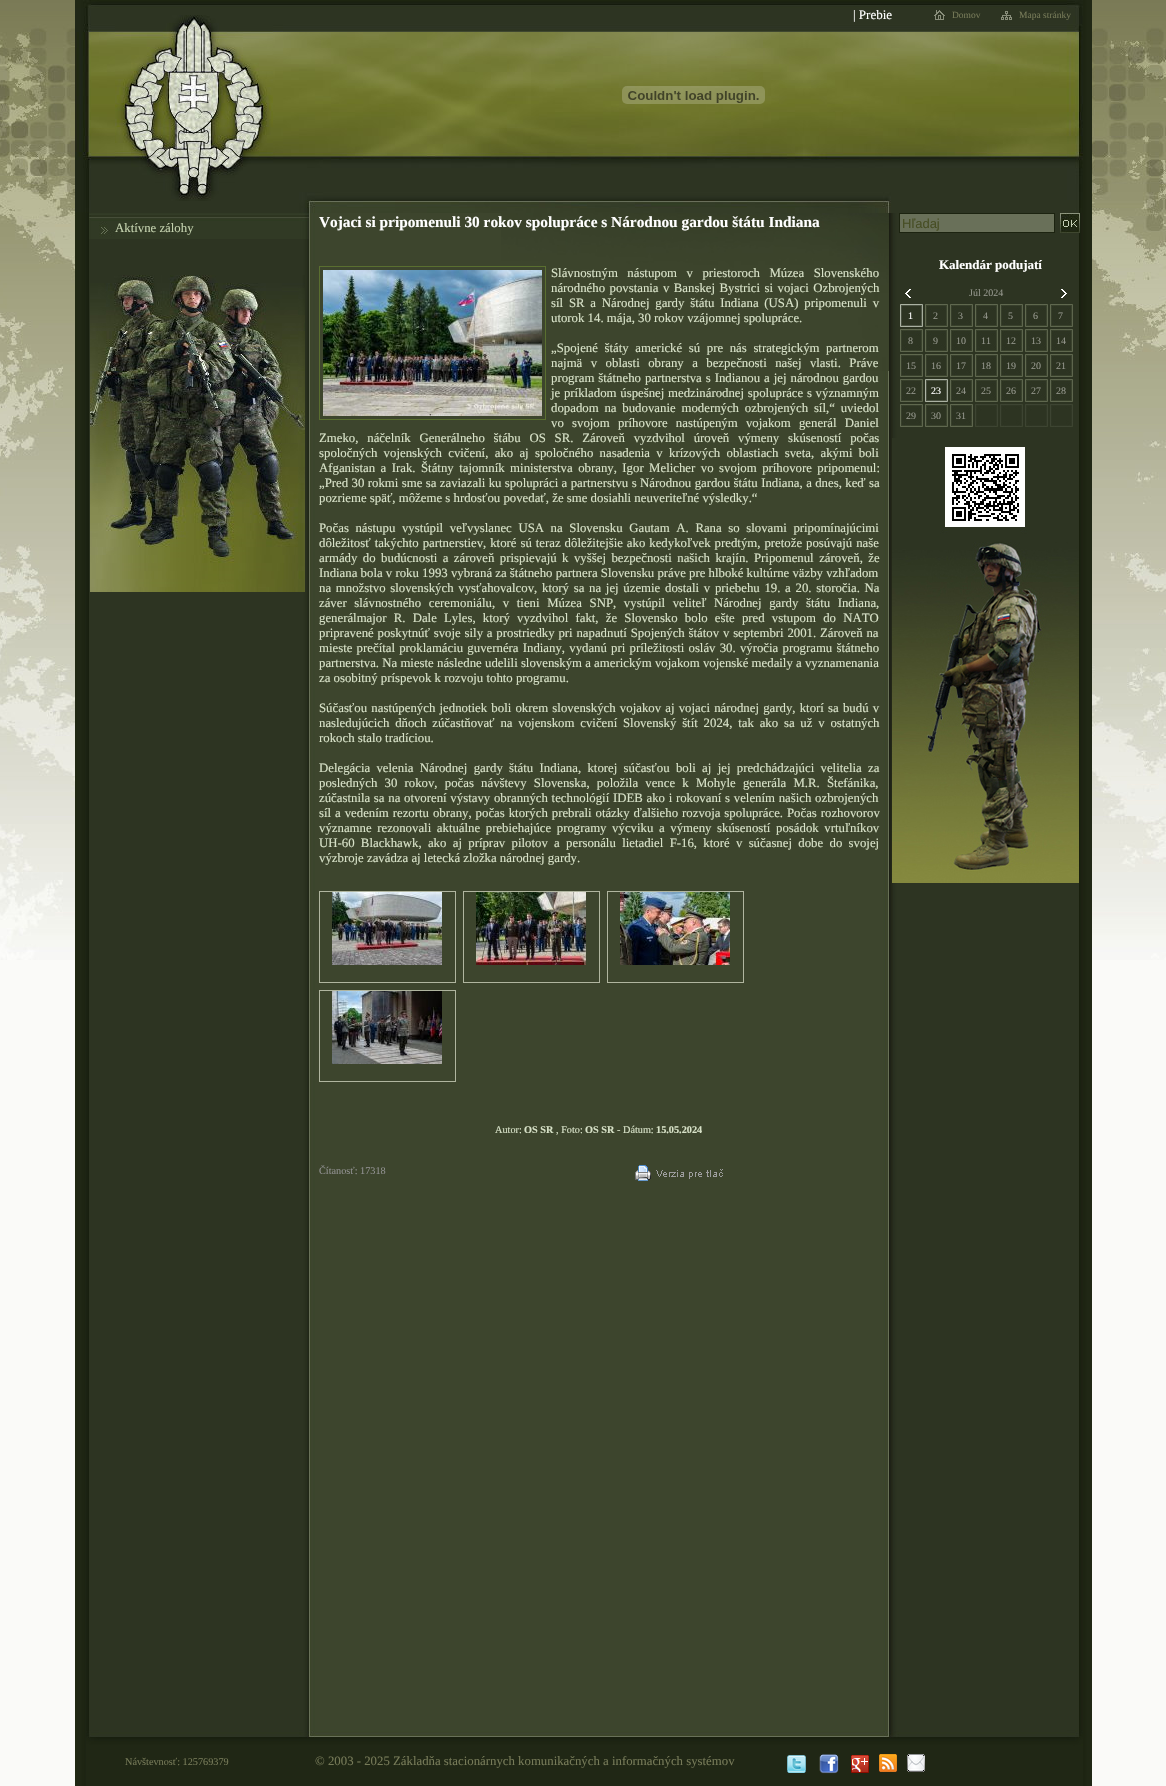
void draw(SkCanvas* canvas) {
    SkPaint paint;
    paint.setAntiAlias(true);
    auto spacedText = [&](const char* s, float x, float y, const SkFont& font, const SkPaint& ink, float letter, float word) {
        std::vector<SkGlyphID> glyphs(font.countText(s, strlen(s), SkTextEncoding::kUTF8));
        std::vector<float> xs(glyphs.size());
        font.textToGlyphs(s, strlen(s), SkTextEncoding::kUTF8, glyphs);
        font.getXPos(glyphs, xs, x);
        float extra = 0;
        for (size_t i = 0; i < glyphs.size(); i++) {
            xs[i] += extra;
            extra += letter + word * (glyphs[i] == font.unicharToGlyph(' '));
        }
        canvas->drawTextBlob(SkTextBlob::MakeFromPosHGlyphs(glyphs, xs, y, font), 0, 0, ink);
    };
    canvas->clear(0xFFFAFAF8);
    canvas->drawImageRect(SkImages::DeferredFromEncodedData(SkData::MakeFromFileName("img1.png")), SkRect::MakeXYWH(0, 0, 1166, 960), SkSamplingOptions());
    canvas->drawImageRect(SkImages::DeferredFromEncodedData(SkData::MakeFromFileName("img2.png")), SkRect::MakeXYWH(75, 0, 1017, 1786), SkSamplingOptions());
    canvas->drawImageRect(SkImages::DeferredFromEncodedData(SkData::MakeFromFileName("img3.png")), SkRect::MakeXYWH(75, 0, 1008, 213), SkSamplingOptions());
    canvas->drawImageRect(SkImages::DeferredFromEncodedData(SkData::MakeFromFileName("img4.png")), SkRect::MakeXYWH(115, 15, 158, 186), SkSamplingOptions());
    canvas->drawImageRect(SkImages::DeferredFromEncodedData(SkData::MakeFromFileName("img5.png")), SkRect::MakeXYWH(622, 86, 143, 18), SkSamplingOptions());
    SkFont font1(fontMgr->matchFamilyStyle("Liberation Serif", SkFontStyle::Normal()), 13);
    font1.setSubpixel(true);
    paint.setColor(0xFFFFFFFF);
    canvas->drawString("| Prebie", 853, 19, font1, paint);
    canvas->drawImageRect(SkImages::DeferredFromEncodedData(SkData::MakeFromFileName("img6.png")), SkRect::MakeXYWH(934, 10, 11, 10), SkSamplingOptions());
    SkFont font2(fontMgr->matchFamilyStyle("Liberation Serif", SkFontStyle::Normal()), 9.5f);
    font2.setSubpixel(true);
    paint.setColor(0xFF767A58);
    canvas->drawString("Domov", 952, 18, font2, paint);
    canvas->drawImageRect(SkImages::DeferredFromEncodedData(SkData::MakeFromFileName("img7.png")), SkRect::MakeXYWH(1001, 11, 11, 9), SkSamplingOptions());
    canvas->drawString("Mapa stránky", 1019, 18, font2, paint);
    canvas->drawImageRect(SkImages::DeferredFromEncodedData(SkData::MakeFromFileName("img8.png")), SkRect::MakeXYWH(89, 213, 220, 26), SkSamplingOptions());
    SkFont font3(fontMgr->matchFamilyStyle("Liberation Serif", SkFontStyle::Normal()), 12.8f);
    font3.setSubpixel(true);
    paint.setColor(0xFFC3D1AD);
    canvas->drawString("Aktívne zálohy", 115, 232, font3, paint);
    canvas->drawImageRect(SkImages::DeferredFromEncodedData(SkData::MakeFromFileName("img9.png")), SkRect::MakeXYWH(90, 275, 215, 317), SkSamplingOptions());
    canvas->drawImageRect(SkImages::DeferredFromEncodedData(SkData::MakeFromFileName("img10.png")), SkRect::MakeXYWH(501, 213, 388, 158), SkSamplingOptions());
    SkFont font4(fontMgr->matchFamilyStyle("Liberation Serif", SkFontStyle::Bold()), 15.35f);
    font4.setSubpixel(true);
    paint.setColor(0xFFFFFFFF);
    canvas->drawString("Vojaci si pripomenuli 30 rokov spolupráce s Národnou gardou štátu Indiana", 319, 227, font4, paint);
    paint.setStyle(SkPaint::kStroke_Style);
    paint.setStrokeWidth(1);
    paint.setColor(0xFF5A6F30);
    canvas->drawRect(SkRect::MakeXYWH(319.5f, 266.5f, 226, 153), paint);
    canvas->drawImageRect(SkImages::DeferredFromEncodedData(SkData::MakeFromFileName("img11.png")), SkRect::MakeXYWH(323, 270, 219, 146), SkSamplingOptions());
    paint.setStyle(SkPaint::kFill_Style);
    paint.setColor(0xFFD7E1C7);
    spacedText("Slávnostným nástupom v priestoroch Múzea Slovenského", 551, 277, font3, paint, 0, 6.25f);
    spacedText("národného povstania v Banskej Bystrici si vojaci Ozbrojených", 551, 292, font3, paint, 0, 1.25f);
    spacedText("síl SR a Národnej gardy štátu Indiana (USA) pripomenuli v", 551, 307, font3, paint, 0, 2.6f);
    canvas->drawString("utorok 14. mája, 30 rokov vzájomnej spolupráce.", 551, 322, font3, paint);
    spacedText("„Spojené štáty americké sú pre nás strategickým partnerom", 551, 352, font3, paint, 0, 3.4f);
    spacedText("najmä v oblasti obrany a bezpečnosti našej vlasti. Práve", 551, 367, font3, paint, 0, 5.25f);
    spacedText("program štátneho partnerstva s Indianou a jej národnou gardou", 551, 382, font3, paint, 0, 0.75f);
    spacedText("je príkladom úspešnej medzinárodnej spolupráce s významným", 551, 397, font3, paint, 0, 0.5f);
    spacedText("dopadom na budovanie moderných ozbrojených síl,“ uviedol", 551, 412, font3, paint, 0, 2.6f);
    spacedText("vo svojom príhovore nastúpeným vojakom generál Daniel", 551, 427, font3, paint, 0, 5);
    spacedText("Zmeko, náčelník Generálneho štábu OS SR. Zároveň vyzdvihol úroveň výmeny skúseností počas", 319, 442, font3, paint, 0, 5.6f);
    spacedText("spoločných vojenských cvičení, ako aj spoločného nasadenia v krízových oblastiach sveta, akými boli", 319, 457, font3, paint, 0, 3.1f);
    spacedText("Afganistan a Irak. Štátny tajomník ministerstva obrany, Igor Melicher vo svojom príhovore pripomenul:", 319, 472, font3, paint, 0, 2.25f);
    spacedText("„Pred 30 rokmi sme sa zaviazali ku spolupráci a partnerstvu s Národnou gardou štátu Indiana, a dnes, keď sa", 319, 487, font3, paint, 0, 0.2f);
    canvas->drawString("pozrieme späť, môžeme s hrdosťou povedať, že sme dosiahli neuveriteľné výsledky.“", 319, 502, font3, paint);
    spacedText("Počas nástupu vystúpil veľvyslanec USA na Slovensku Gautam A. Rana so slovami pripomínajúcimi", 319, 532, font3, paint, 0, 3.4f);
    spacedText("dôležitosť takýchto partnerstiev, ktoré sú teraz dôležitejšie ako kedykoľvek predtým, pretože posúvajú naše", 319, 547, font3, paint, 0, 0.75f);
    spacedText("armády do budúcnosti a zároveň prispievajú k vyššej bezpečnosti našich krajín. Pripomenul zároveň, že", 319, 562, font3, paint, 0, 2.25f);
    canvas->drawString("Indiana bola v roku 1993 vybraná za štátneho partnera Slovensku práve pre hlboké kultúrne väzby vzhľadom", 319, 577, font3, paint);
    spacedText("na množstvo slovenských vysťahovalcov, ktorý sa na jej územie dostali v priebehu 19. a 20. storočia. Na", 319, 592, font3, paint, 0, 1.5f);
    spacedText("záver slávnostného ceremoniálu, v tieni Múzea SNP, vystúpil veliteľ Národnej gardy štátu Indiana,", 319, 607, font3, paint, 0, 4.4f);
    spacedText("generálmajor R. Dale Lyles, ktorý vyzdvihol fakt, že Slovensko bolo ešte pred vstupom do NATO", 319, 622, font3, paint, 0, 4);
    spacedText("pripravené poskytnúť svoje sily a prostriedky pri napadnutí Spojených štátov v septembri 2001. Zároveň na", 319, 637, font3, paint, 0, 0.6f);
    spacedText("mieste prečítal proklamáciu guvernéra Indiany, vydanú pri príležitosti osláv 30. výročia programu štátneho", 319, 652, font3, paint, 0, 1);
    canvas->drawString("partnerstva. Na mieste následne udelili slovenským a americkým vojakom vojenské medaily a vyznamenania", 319, 667, font3, paint);
    canvas->drawString("za osobitný príspevok k rozvoju tohto programu.", 319, 682, font3, paint);
    spacedText("Súčasťou nastúpených jednotiek boli okrem slovenských vojakov aj vojaci národnej gardy, ktorí sa budú v", 319, 712, font3, paint, 0, 1);
    spacedText("nasledujúcich dňoch zúčastňovať na vojenskom cvičení Slovenský štít 2024, tak ako sa už v ostatných", 319, 727, font3, paint, 0, 2.6f);
    canvas->drawString("rokoch stalo tradíciou.", 319, 742, font3, paint);
    spacedText("Delegácia velenia Národnej gardy štátu Indiana, ktorej súčasťou boli aj jej predchádzajúci velitelia za", 319, 772, font3, paint, 0, 3.1f);
    spacedText("posledných 30 rokov, počas návštevy Slovenska, položila vence k Mohyle generála M.R. Štefánika,", 319, 787, font3, paint, 0, 4);
    spacedText("zúčastnila sa na otvorení výstavy obranných technológií IDEB ako i rokovaní s velením našich ozbrojených", 319, 802, font3, paint, 0, 0.5f);
    spacedText("síl a vedením rezortu obrany, počas ktorých prebrali otázky ďalšieho rozvoja spolupráce. Počas rozhovorov", 319, 817, font3, paint, 0, 0.75f);
    spacedText("významne rezonovali aktuálne prebiehajúce programy výcviku a výmeny skúseností posádok vrtuľníkov", 319, 832, font3, paint, 0, 2.4f);
    spacedText("UH-60 Blackhawk, ako aj príprav pilotov a personálu lietadiel F-16, ktoré v súčasnej dobe do svojej", 319, 847, font3, paint, 0, 3.1f);
    canvas->drawString("výzbroje zavádza aj letecká zložka národnej gardy.", 319, 862, font3, paint);
    paint.setStyle(SkPaint::kStroke_Style);
    paint.setColor(0xFFB0B59F);
    canvas->drawRect(SkRect::MakeXYWH(319.5f, 891.5f, 136, 91), paint);
    canvas->drawImageRect(SkImages::DeferredFromEncodedData(SkData::MakeFromFileName("img12.png")), SkRect::MakeXYWH(332, 892, 110, 73), SkSamplingOptions());
    canvas->drawRect(SkRect::MakeXYWH(463.5f, 891.5f, 136, 91), paint);
    canvas->drawImageRect(SkImages::DeferredFromEncodedData(SkData::MakeFromFileName("img13.png")), SkRect::MakeXYWH(476, 892, 110, 73), SkSamplingOptions());
    canvas->drawRect(SkRect::MakeXYWH(607.5f, 891.5f, 136, 91), paint);
    canvas->drawImageRect(SkImages::DeferredFromEncodedData(SkData::MakeFromFileName("img14.png")), SkRect::MakeXYWH(620, 892, 110, 73), SkSamplingOptions());
    canvas->drawRect(SkRect::MakeXYWH(319.5f, 990.5f, 136, 91), paint);
    canvas->drawImageRect(SkImages::DeferredFromEncodedData(SkData::MakeFromFileName("img15.png")), SkRect::MakeXYWH(332, 991, 110, 73), SkSamplingOptions());
    SkFont font5(fontMgr->matchFamilyStyle("Liberation Serif", SkFontStyle::Normal()), 10.25f);
    font5.setSubpixel(true);
    paint.setStyle(SkPaint::kFill_Style);
    paint.setColor(0xFFD7E1C7);
    canvas->drawString("Autor:", 495, 1133, font5, paint);
    SkFont font6(fontMgr->matchFamilyStyle("Liberation Serif", SkFontStyle::Bold()), 10.25f);
    font6.setSubpixel(true);
    canvas->drawString("OS SR", 524, 1133, font6, paint);
    canvas->drawString(", Foto:", 556, 1133, font5, paint);
    canvas->drawString("OS SR", 585, 1133, font6, paint);
    canvas->drawString("- Dátum:", 617, 1133, font5, paint);
    canvas->drawString("15.05.2024", 656, 1133, font6, paint);
    paint.setColor(0xFF919191);
    canvas->drawString("Čítanosť: 17318", 319, 1174, font5, paint);
    canvas->drawImageRect(SkImages::DeferredFromEncodedData(SkData::MakeFromFileName("img16.png")), SkRect::MakeXYWH(635, 1165, 88, 16), SkSamplingOptions());
    paint.setColor(0xFF697059);
    canvas->drawRect(SkRect::MakeXYWH(899.5f, 213.5f, 155, 19), paint);
    paint.setStyle(SkPaint::kStroke_Style);
    paint.setColor(0xFF1C2310);
    canvas->drawRect(SkRect::MakeXYWH(899.5f, 213.5f, 155, 19), paint);
    SkFont font7(fontMgr->matchFamilyStyle("Liberation Sans", SkFontStyle::Normal()), 13);
    font7.setSubpixel(true);
    paint.setStyle(SkPaint::kFill_Style);
    paint.setColor(0xFF464D23);
    canvas->drawString("Hľadaj", 902, 228, font7, paint);
    canvas->drawImageRect(SkImages::DeferredFromEncodedData(SkData::MakeFromFileName("img17.png")), SkRect::MakeXYWH(1060, 213, 20, 20), SkSamplingOptions());
    SkFont font8(fontMgr->matchFamilyStyle("Liberation Serif", SkFontStyle::Bold()), 13);
    font8.setSubpixel(true);
    paint.setColor(0xFFFFFFFF);
    canvas->drawString("Kalendár podujatí", 939, 269, font8, paint);
    canvas->drawImageRect(SkImages::DeferredFromEncodedData(SkData::MakeFromFileName("img18.png")), SkRect::MakeXYWH(905, 289, 6, 9), SkSamplingOptions());
    SkFont font9(fontMgr->matchFamilyStyle("Liberation Serif", SkFontStyle::Normal()), 10);
    font9.setSubpixel(true);
    paint.setColor(0xFF95978D);
    canvas->drawString("Júl 2024", 969, 296, font9, paint);
    canvas->drawImageRect(SkImages::DeferredFromEncodedData(SkData::MakeFromFileName("img19.png")), SkRect::MakeXYWH(1061, 289, 6, 9), SkSamplingOptions());
    canvas->drawImageRect(SkImages::DeferredFromEncodedData(SkData::MakeFromFileName("img20.png")), SkRect::MakeXYWH(900, 304, 23, 23), SkSamplingOptions());
    paint.setColor(0xFFFFFFFF);
    canvas->drawString("1", 908, 319, font9, paint);
    canvas->drawImageRect(SkImages::DeferredFromEncodedData(SkData::MakeFromFileName("img21.png")), SkRect::MakeXYWH(925, 304, 23, 23), SkSamplingOptions());
    paint.setColor(0xFF95978D);
    canvas->drawString("2", 933, 319, font9, paint);
    canvas->drawImageRect(SkImages::DeferredFromEncodedData(SkData::MakeFromFileName("img21.png")), SkRect::MakeXYWH(950, 304, 23, 23), SkSamplingOptions());
    canvas->drawString("3", 958, 319, font9, paint);
    canvas->drawImageRect(SkImages::DeferredFromEncodedData(SkData::MakeFromFileName("img21.png")), SkRect::MakeXYWH(975, 304, 23, 23), SkSamplingOptions());
    canvas->drawString("4", 983, 319, font9, paint);
    canvas->drawImageRect(SkImages::DeferredFromEncodedData(SkData::MakeFromFileName("img21.png")), SkRect::MakeXYWH(1000, 304, 23, 23), SkSamplingOptions());
    canvas->drawString("5", 1008, 319, font9, paint);
    canvas->drawImageRect(SkImages::DeferredFromEncodedData(SkData::MakeFromFileName("img21.png")), SkRect::MakeXYWH(1025, 304, 23, 23), SkSamplingOptions());
    canvas->drawString("6", 1033, 319, font9, paint);
    canvas->drawImageRect(SkImages::DeferredFromEncodedData(SkData::MakeFromFileName("img21.png")), SkRect::MakeXYWH(1050, 304, 23, 23), SkSamplingOptions());
    canvas->drawString("7", 1058, 319, font9, paint);
    canvas->drawImageRect(SkImages::DeferredFromEncodedData(SkData::MakeFromFileName("img21.png")), SkRect::MakeXYWH(900, 329, 23, 23), SkSamplingOptions());
    canvas->drawString("8", 908, 344, font9, paint);
    canvas->drawImageRect(SkImages::DeferredFromEncodedData(SkData::MakeFromFileName("img21.png")), SkRect::MakeXYWH(925, 329, 23, 23), SkSamplingOptions());
    canvas->drawString("9", 933, 344, font9, paint);
    canvas->drawImageRect(SkImages::DeferredFromEncodedData(SkData::MakeFromFileName("img21.png")), SkRect::MakeXYWH(950, 329, 23, 23), SkSamplingOptions());
    canvas->drawString("10", 956, 344, font9, paint);
    canvas->drawImageRect(SkImages::DeferredFromEncodedData(SkData::MakeFromFileName("img21.png")), SkRect::MakeXYWH(975, 329, 23, 23), SkSamplingOptions());
    canvas->drawString("11", 981, 344, font9, paint);
    canvas->drawImageRect(SkImages::DeferredFromEncodedData(SkData::MakeFromFileName("img21.png")), SkRect::MakeXYWH(1000, 329, 23, 23), SkSamplingOptions());
    canvas->drawString("12", 1006, 344, font9, paint);
    canvas->drawImageRect(SkImages::DeferredFromEncodedData(SkData::MakeFromFileName("img21.png")), SkRect::MakeXYWH(1025, 329, 23, 23), SkSamplingOptions());
    canvas->drawString("13", 1031, 344, font9, paint);
    canvas->drawImageRect(SkImages::DeferredFromEncodedData(SkData::MakeFromFileName("img21.png")), SkRect::MakeXYWH(1050, 329, 23, 23), SkSamplingOptions());
    canvas->drawString("14", 1056, 344, font9, paint);
    canvas->drawImageRect(SkImages::DeferredFromEncodedData(SkData::MakeFromFileName("img21.png")), SkRect::MakeXYWH(900, 354, 23, 23), SkSamplingOptions());
    canvas->drawString("15", 906, 369, font9, paint);
    canvas->drawImageRect(SkImages::DeferredFromEncodedData(SkData::MakeFromFileName("img21.png")), SkRect::MakeXYWH(925, 354, 23, 23), SkSamplingOptions());
    canvas->drawString("16", 931, 369, font9, paint);
    canvas->drawImageRect(SkImages::DeferredFromEncodedData(SkData::MakeFromFileName("img21.png")), SkRect::MakeXYWH(950, 354, 23, 23), SkSamplingOptions());
    canvas->drawString("17", 956, 369, font9, paint);
    canvas->drawImageRect(SkImages::DeferredFromEncodedData(SkData::MakeFromFileName("img21.png")), SkRect::MakeXYWH(975, 354, 23, 23), SkSamplingOptions());
    canvas->drawString("18", 981, 369, font9, paint);
    canvas->drawImageRect(SkImages::DeferredFromEncodedData(SkData::MakeFromFileName("img21.png")), SkRect::MakeXYWH(1000, 354, 23, 23), SkSamplingOptions());
    canvas->drawString("19", 1006, 369, font9, paint);
    canvas->drawImageRect(SkImages::DeferredFromEncodedData(SkData::MakeFromFileName("img21.png")), SkRect::MakeXYWH(1025, 354, 23, 23), SkSamplingOptions());
    canvas->drawString("20", 1031, 369, font9, paint);
    canvas->drawImageRect(SkImages::DeferredFromEncodedData(SkData::MakeFromFileName("img21.png")), SkRect::MakeXYWH(1050, 354, 23, 23), SkSamplingOptions());
    canvas->drawString("21", 1056, 369, font9, paint);
    canvas->drawImageRect(SkImages::DeferredFromEncodedData(SkData::MakeFromFileName("img21.png")), SkRect::MakeXYWH(900, 379, 23, 23), SkSamplingOptions());
    canvas->drawString("22", 906, 394, font9, paint);
    canvas->drawImageRect(SkImages::DeferredFromEncodedData(SkData::MakeFromFileName("img20.png")), SkRect::MakeXYWH(925, 379, 23, 23), SkSamplingOptions());
    paint.setColor(0xFFFFFFFF);
    canvas->drawString("23", 931, 394, font9, paint);
    canvas->drawImageRect(SkImages::DeferredFromEncodedData(SkData::MakeFromFileName("img21.png")), SkRect::MakeXYWH(950, 379, 23, 23), SkSamplingOptions());
    paint.setColor(0xFF95978D);
    canvas->drawString("24", 956, 394, font9, paint);
    canvas->drawImageRect(SkImages::DeferredFromEncodedData(SkData::MakeFromFileName("img21.png")), SkRect::MakeXYWH(975, 379, 23, 23), SkSamplingOptions());
    canvas->drawString("25", 981, 394, font9, paint);
    canvas->drawImageRect(SkImages::DeferredFromEncodedData(SkData::MakeFromFileName("img21.png")), SkRect::MakeXYWH(1000, 379, 23, 23), SkSamplingOptions());
    canvas->drawString("26", 1006, 394, font9, paint);
    canvas->drawImageRect(SkImages::DeferredFromEncodedData(SkData::MakeFromFileName("img21.png")), SkRect::MakeXYWH(1025, 379, 23, 23), SkSamplingOptions());
    canvas->drawString("27", 1031, 394, font9, paint);
    canvas->drawImageRect(SkImages::DeferredFromEncodedData(SkData::MakeFromFileName("img21.png")), SkRect::MakeXYWH(1050, 379, 23, 23), SkSamplingOptions());
    canvas->drawString("28", 1056, 394, font9, paint);
    canvas->drawImageRect(SkImages::DeferredFromEncodedData(SkData::MakeFromFileName("img21.png")), SkRect::MakeXYWH(900, 404, 23, 23), SkSamplingOptions());
    canvas->drawString("29", 906, 419, font9, paint);
    canvas->drawImageRect(SkImages::DeferredFromEncodedData(SkData::MakeFromFileName("img21.png")), SkRect::MakeXYWH(925, 404, 23, 23), SkSamplingOptions());
    canvas->drawString("30", 931, 419, font9, paint);
    canvas->drawImageRect(SkImages::DeferredFromEncodedData(SkData::MakeFromFileName("img21.png")), SkRect::MakeXYWH(950, 404, 23, 23), SkSamplingOptions());
    canvas->drawString("31", 956, 419, font9, paint);
    canvas->drawImageRect(SkImages::DeferredFromEncodedData(SkData::MakeFromFileName("img22.png")), SkRect::MakeXYWH(975, 404, 23, 23), SkSamplingOptions());
    canvas->drawImageRect(SkImages::DeferredFromEncodedData(SkData::MakeFromFileName("img22.png")), SkRect::MakeXYWH(1000, 404, 23, 23), SkSamplingOptions());
    canvas->drawImageRect(SkImages::DeferredFromEncodedData(SkData::MakeFromFileName("img22.png")), SkRect::MakeXYWH(1025, 404, 23, 23), SkSamplingOptions());
    canvas->drawImageRect(SkImages::DeferredFromEncodedData(SkData::MakeFromFileName("img22.png")), SkRect::MakeXYWH(1050, 404, 23, 23), SkSamplingOptions());
    canvas->drawImageRect(SkImages::DeferredFromEncodedData(SkData::MakeFromFileName("img23.png")), SkRect::MakeXYWH(892, 438, 187, 445), SkSamplingOptions());
    canvas->drawImageRect(SkImages::DeferredFromEncodedData(SkData::MakeFromFileName("img24.png")), SkRect::MakeXYWH(86, 1730, 997, 56), SkSamplingOptions());
    paint.setColor(0xFF767A58);
    canvas->drawString("Návštevnosť: 125769379", 125, 1765, font5, paint);
    canvas->drawString("© 2003 - 2025 Základňa stacionárnych komunikačných a informačných systémov", 315, 1765, font3, paint);
    canvas->drawImageRect(SkImages::DeferredFromEncodedData(SkData::MakeFromFileName("img25.png")), SkRect::MakeXYWH(787, 1755, 19, 18), SkSamplingOptions());
    canvas->drawImageRect(SkImages::DeferredFromEncodedData(SkData::MakeFromFileName("img26.png")), SkRect::MakeXYWH(819, 1754, 20, 20), SkSamplingOptions());
    canvas->drawImageRect(SkImages::DeferredFromEncodedData(SkData::MakeFromFileName("img27.png")), SkRect::MakeXYWH(851, 1755, 18, 18), SkSamplingOptions());
    canvas->drawImageRect(SkImages::DeferredFromEncodedData(SkData::MakeFromFileName("img28.png")), SkRect::MakeXYWH(879, 1754, 18, 18), SkSamplingOptions());
    canvas->drawImageRect(SkImages::DeferredFromEncodedData(SkData::MakeFromFileName("img29.png")), SkRect::MakeXYWH(907, 1754, 18, 18), SkSamplingOptions());
}
